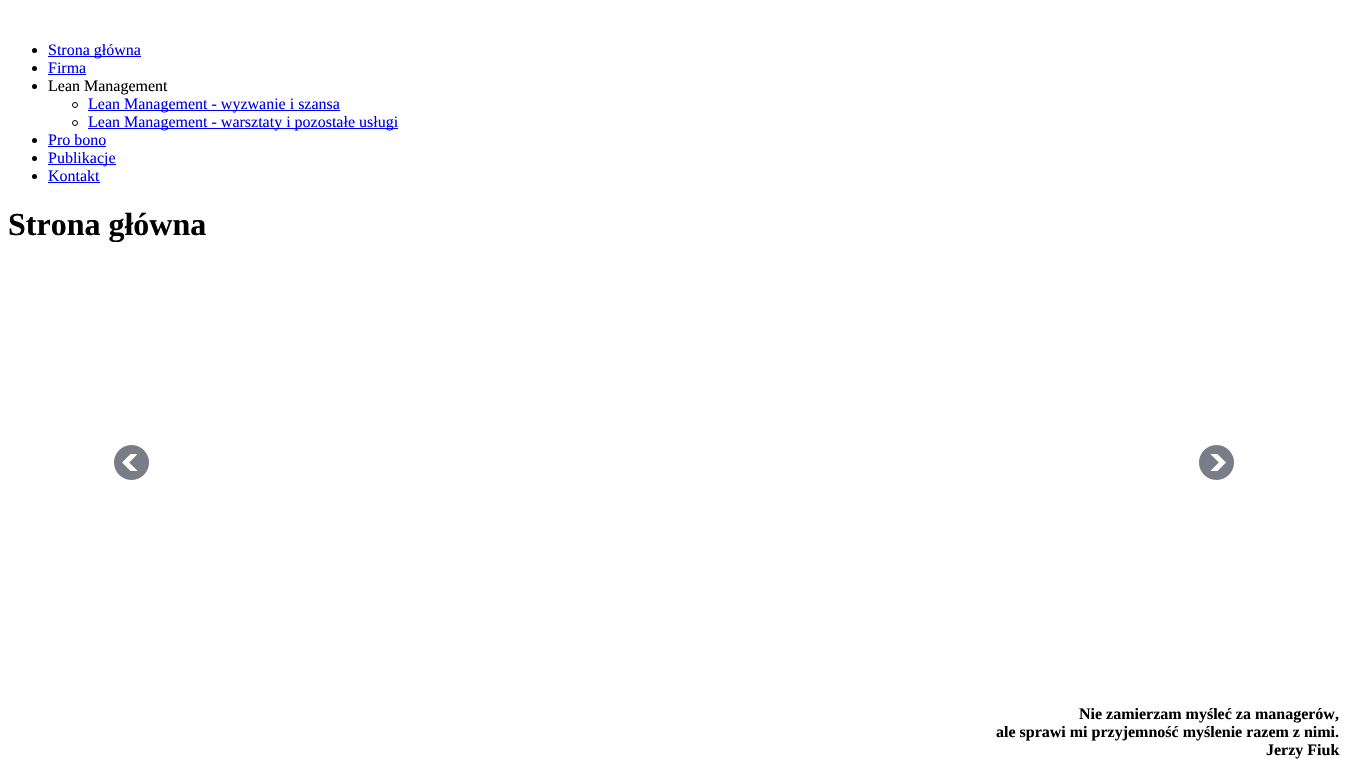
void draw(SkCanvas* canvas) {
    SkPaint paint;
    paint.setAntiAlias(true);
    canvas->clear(0xFFFFFFFF);
    paint.setColor(0xFF000000);
    canvas->drawCircle(34.5f, 50.5f, 2.5f, paint);
    paint.setColor(0xFF0000EE);
    canvas->drawRect(SkRect::MakeXYWH(48, 56, 93, 1), paint);
    SkFont font1(fontMgr->matchFamilyStyle("Liberation Serif", SkFontStyle::Normal()), 16);
    font1.setSubpixel(true);
    canvas->drawString("Strona główna", 48, 55, font1, paint);
    paint.setColor(0xFF000000);
    canvas->drawCircle(34.5f, 68.5f, 2.5f, paint);
    paint.setColor(0xFF0000EE);
    canvas->drawString("Firma", 48, 73, font1, paint);
    canvas->drawRect(SkRect::MakeXYWH(48, 74, 38, 1), paint);
    paint.setColor(0xFF000000);
    canvas->drawCircle(34.5f, 86.5f, 2.5f, paint);
    canvas->drawString("Lean Management", 48, 91, font1, paint);
    paint.setStyle(SkPaint::kStroke_Style);
    paint.setStrokeWidth(1);
    canvas->drawCircle(75, 105, 2.5f, paint);
    paint.setStyle(SkPaint::kFill_Style);
    paint.setColor(0xFF0000EE);
    canvas->drawRect(SkRect::MakeXYWH(88, 110, 252, 1), paint);
    canvas->drawString("Lean Management - wyzwanie i szansa", 88, 109, font1, paint);
    paint.setStyle(SkPaint::kStroke_Style);
    paint.setColor(0xFF000000);
    canvas->drawCircle(75, 123, 2.5f, paint);
    paint.setStyle(SkPaint::kFill_Style);
    paint.setColor(0xFF0000EE);
    canvas->drawRect(SkRect::MakeXYWH(88, 128, 310, 1), paint);
    canvas->drawString("Lean Management - warsztaty i pozostałe usługi", 88, 127, font1, paint);
    paint.setColor(0xFF000000);
    canvas->drawCircle(34.5f, 140.5f, 2.5f, paint);
    paint.setColor(0xFF0000EE);
    canvas->drawString("Pro bono", 48, 145, font1, paint);
    canvas->drawRect(SkRect::MakeXYWH(48, 146, 58, 1), paint);
    paint.setColor(0xFF000000);
    canvas->drawCircle(34.5f, 158.5f, 2.5f, paint);
    paint.setColor(0xFF0000EE);
    canvas->drawRect(SkRect::MakeXYWH(48, 164, 68, 1), paint);
    canvas->drawString("Publikacje", 48, 163, font1, paint);
    paint.setColor(0xFF000000);
    canvas->drawCircle(34.5f, 176.5f, 2.5f, paint);
    paint.setColor(0xFF0000EE);
    canvas->drawString("Kontakt", 48, 181, font1, paint);
    canvas->drawRect(SkRect::MakeXYWH(48, 182, 52, 1), paint);
    SkFont font2(fontMgr->matchFamilyStyle("Liberation Serif", SkFontStyle::Bold()), 32);
    font2.setSubpixel(true);
    paint.setColor(0xFF000000);
    canvas->drawString("Strona główna", 8, 235, font2, paint);
    canvas->drawImageRect(SkImages::DeferredFromEncodedData(SkData::MakeFromFileName("img1.png")), SkRect::MakeXYWH(114, 445, 35, 35), SkSamplingOptions());
    canvas->drawImageRect(SkImages::DeferredFromEncodedData(SkData::MakeFromFileName("img2.png")), SkRect::MakeXYWH(1199, 445, 35, 35), SkSamplingOptions());
    SkFont font3(fontMgr->matchFamilyStyle("Liberation Serif", SkFontStyle::Bold()), 16);
    font3.setSubpixel(true);
    canvas->drawString("Nie zamierzam myśleć za managerów,", 1079, 719, font3, paint);
    canvas->drawString("ale sprawi mi przyjemność myślenie razem z nimi.", 996, 737, font3, paint);
    canvas->drawString("Jerzy Fiuk", 1266, 755, font3, paint);
}
